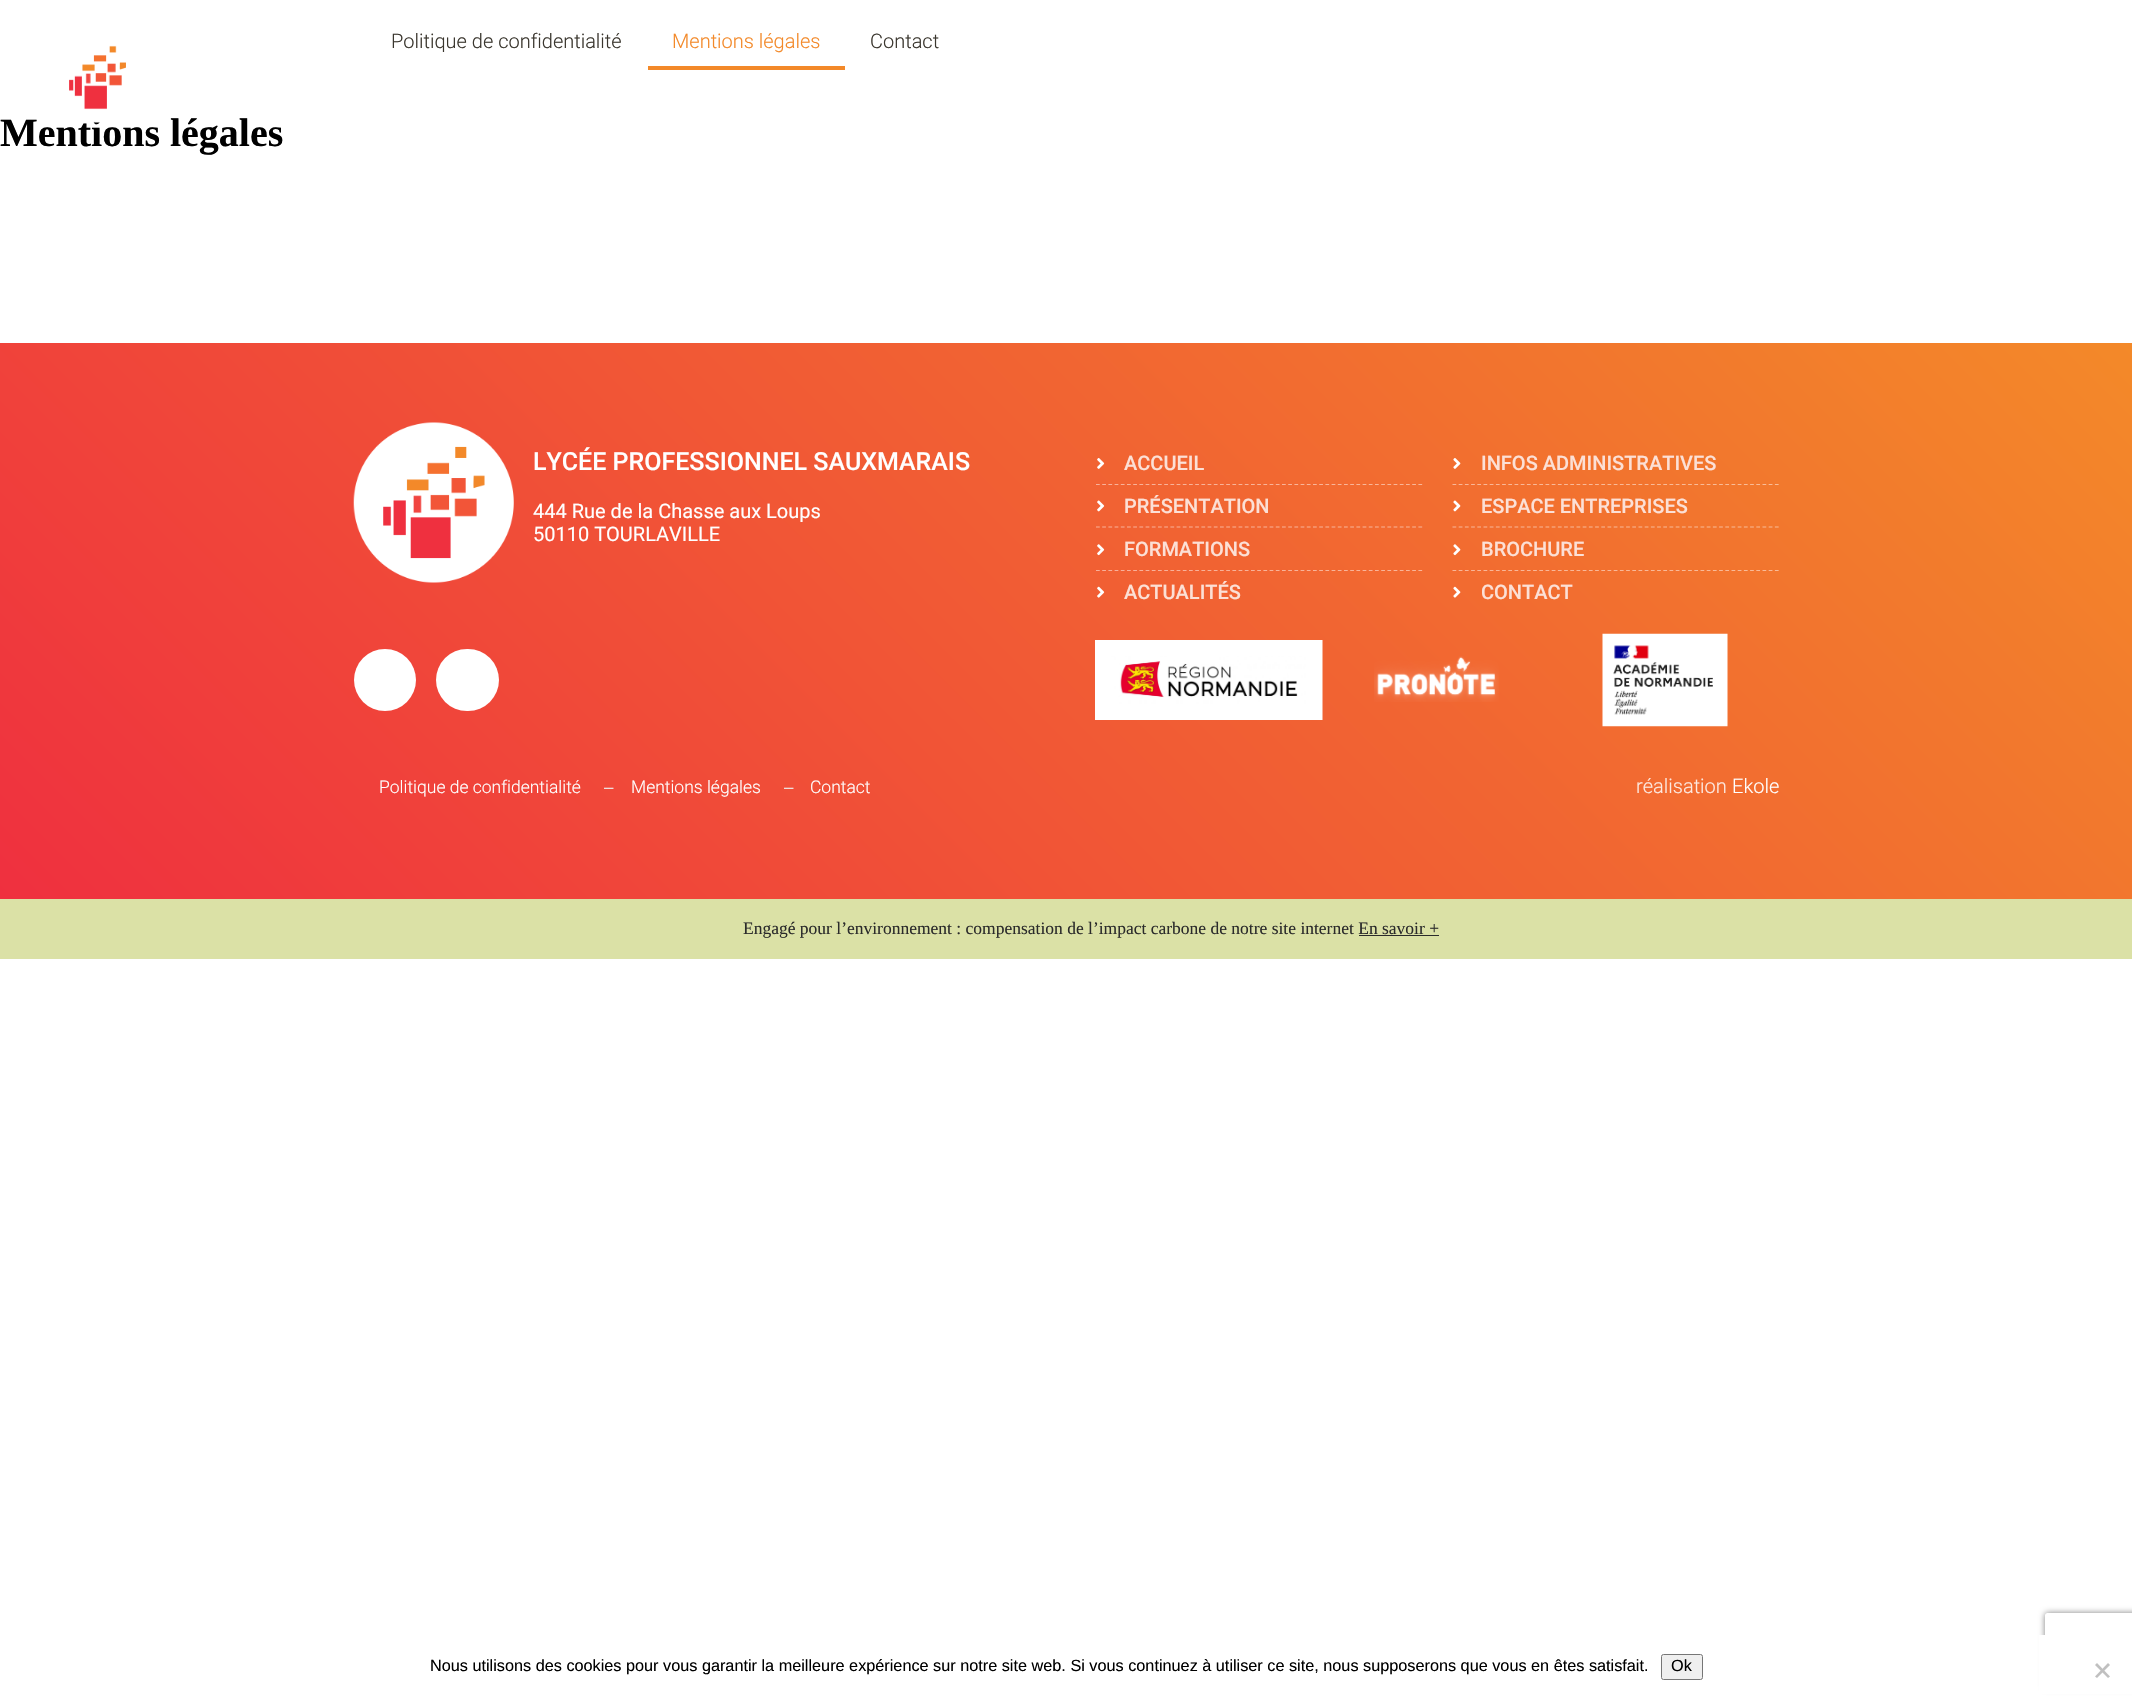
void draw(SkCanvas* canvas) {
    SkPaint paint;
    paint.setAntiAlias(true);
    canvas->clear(0xFFFFFFFF);
    SkFont font1(fontMgr->matchFamilyStyle("Roboto", SkFontStyle(300, SkFontStyle::kNormal_Width, SkFontStyle::kUpright_Slant)), 20);
    font1.setSubpixel(true);
    paint.setColor(0xFF3A362E);
    canvas->drawString("Politique de confidentialité", 391, 48, font1, paint);
    paint.setColor(0xFFF38929);
    canvas->drawString("Mentions légales", 672, 48, font1, paint);
    canvas->drawRect(SkRect::MakeXYWH(648, 66, 197, 4), paint);
    paint.setColor(0xFF3A362E);
    canvas->drawString("Contact", 870, 48, font1, paint);
    SkFont font2(fontMgr->matchFamilyStyle("Liberation Serif", SkFontStyle::Bold()), 40);
    font2.setSubpixel(true);
    paint.setColor(0xFF000000);
    canvas->drawString("Mentions légales", 0, 146, font2, paint);
    canvas->drawImageRect(SkImages::DeferredFromEncodedData(SkData::MakeFromFileName("img1.png")), SkRect::MakeXYWH(69, 45, 57, 78), SkSamplingOptions());
    {
        const SkColor colors[] = {0xFFEF303F, 0xFFF38929};
        const float stops[] = {0, 1};
        const SkPoint ends[] = {{394, 1293}, {1738, -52}};
        paint.setShader(SkGradientShader::MakeLinear(ends, colors, stops, 2, SkTileMode::kClamp));
        paint.setAlpha(255);
    }
    canvas->drawRect(SkRect::MakeXYWH(0, 343, 2132, 556), paint);
    canvas->drawImageRect(SkImages::DeferredFromEncodedData(SkData::MakeFromFileName("img2.png")), SkRect::MakeXYWH(353, 422, 161, 161), SkSamplingOptions());
    SkFont font3(fontMgr->matchFamilyStyle("Roboto", SkFontStyle(500, SkFontStyle::kNormal_Width, SkFontStyle::kUpright_Slant)), 25);
    font3.setSubpixel(true);
    paint.setShader(nullptr);
    paint.setColor(0xFFFFFFFF);
    canvas->drawString("LYCÉE PROFESSIONNEL SAUXMARAIS", 533, 470, font3, paint);
    SkFont font4(fontMgr->matchFamilyStyle("Roboto", SkFontStyle::Normal()), 20);
    font4.setSubpixel(true);
    canvas->drawString("444 Rue de la Chasse aux Loups", 533, 518, font4, paint);
    canvas->drawString("50110 TOURLAVILLE", 533, 541, font4, paint);
    canvas->drawImageRect(SkImages::DeferredFromEncodedData(SkData::MakeFromFileName("img3.png")), SkRect::MakeXYWH(1097, 458, 8, 11), SkSamplingOptions());
    SkFont font5(fontMgr->matchFamilyStyle("Roboto", SkFontStyle(500, SkFontStyle::kNormal_Width, SkFontStyle::kUpright_Slant)), 20);
    font5.setSubpixel(true);
    paint.setColor(0xFFFCE0D6);
    canvas->drawString("ACCUEIL", 1124, 470, font5, paint);
    paint.setStyle(SkPaint::kStroke_Style);
    paint.setStrokeWidth(1.2f);
    paint.setColor(0x80FFFFFF);
    paint.setPathEffect(SkDashPathEffect::Make({{3.75f, 2.45f}}, 0));
    canvas->drawPath(SkPathBuilder().moveTo(1096, 484.5f).lineTo(1422.5f, 484.5f).detach(), paint);
    paint.setPathEffect(nullptr);
    canvas->drawImageRect(SkImages::DeferredFromEncodedData(SkData::MakeFromFileName("img4.png")), SkRect::MakeXYWH(1097, 500, 8, 12), SkSamplingOptions());
    paint.setStyle(SkPaint::kFill_Style);
    paint.setColor(0xFFFCE0D6);
    canvas->drawString("PRÉSENTATION", 1124, 513, font5, paint);
    paint.setStyle(SkPaint::kStroke_Style);
    paint.setColor(0x80FFFFFF);
    paint.setPathEffect(SkDashPathEffect::Make({{3.75f, 2.45f}}, 0));
    canvas->drawPath(SkPathBuilder().moveTo(1096, 527).lineTo(1422.5f, 527).detach(), paint);
    paint.setPathEffect(nullptr);
    canvas->drawImageRect(SkImages::DeferredFromEncodedData(SkData::MakeFromFileName("img5.png")), SkRect::MakeXYWH(1097, 544, 8, 12), SkSamplingOptions());
    paint.setStyle(SkPaint::kFill_Style);
    paint.setColor(0xFFFCE0D6);
    canvas->drawString("FORMATIONS", 1124, 556, font5, paint);
    paint.setStyle(SkPaint::kStroke_Style);
    paint.setColor(0x80FFFFFF);
    paint.setPathEffect(SkDashPathEffect::Make({{3.75f, 2.45f}}, 0));
    canvas->drawPath(SkPathBuilder().moveTo(1096, 570.5f).lineTo(1422.5f, 570.5f).detach(), paint);
    paint.setPathEffect(nullptr);
    canvas->drawImageRect(SkImages::DeferredFromEncodedData(SkData::MakeFromFileName("img6.png")), SkRect::MakeXYWH(1097, 586, 8, 12), SkSamplingOptions());
    paint.setStyle(SkPaint::kFill_Style);
    paint.setColor(0xFFFCE0D6);
    canvas->drawString("ACTUALITÉS", 1124, 599, font5, paint);
    canvas->drawImageRect(SkImages::DeferredFromEncodedData(SkData::MakeFromFileName("img7.png")), SkRect::MakeXYWH(1453, 458, 8, 11), SkSamplingOptions());
    canvas->drawString("INFOS ADMINISTRATIVES", 1481, 470, font5, paint);
    paint.setStyle(SkPaint::kStroke_Style);
    paint.setColor(0x80FFFFFF);
    paint.setPathEffect(SkDashPathEffect::Make({{3.75f, 2.45f}}, 0));
    canvas->drawPath(SkPathBuilder().moveTo(1452.5f, 484.5f).lineTo(1779, 484.5f).detach(), paint);
    paint.setPathEffect(nullptr);
    canvas->drawImageRect(SkImages::DeferredFromEncodedData(SkData::MakeFromFileName("img8.png")), SkRect::MakeXYWH(1453, 500, 8, 12), SkSamplingOptions());
    paint.setStyle(SkPaint::kFill_Style);
    paint.setColor(0xFFFCE0D6);
    canvas->drawString("ESPACE ENTREPRISES", 1481, 513, font5, paint);
    paint.setStyle(SkPaint::kStroke_Style);
    paint.setColor(0x80FFFFFF);
    paint.setPathEffect(SkDashPathEffect::Make({{3.75f, 2.45f}}, 0));
    canvas->drawPath(SkPathBuilder().moveTo(1452.5f, 527).lineTo(1779, 527).detach(), paint);
    paint.setPathEffect(nullptr);
    canvas->drawImageRect(SkImages::DeferredFromEncodedData(SkData::MakeFromFileName("img9.png")), SkRect::MakeXYWH(1453, 544, 8, 12), SkSamplingOptions());
    paint.setStyle(SkPaint::kFill_Style);
    paint.setColor(0xFFFCE0D6);
    canvas->drawString("BROCHURE", 1481, 556, font5, paint);
    paint.setStyle(SkPaint::kStroke_Style);
    paint.setColor(0x80FFFFFF);
    paint.setPathEffect(SkDashPathEffect::Make({{3.75f, 2.45f}}, 0));
    canvas->drawPath(SkPathBuilder().moveTo(1452.5f, 570.5f).lineTo(1779, 570.5f).detach(), paint);
    paint.setPathEffect(nullptr);
    canvas->drawImageRect(SkImages::DeferredFromEncodedData(SkData::MakeFromFileName("img10.png")), SkRect::MakeXYWH(1453, 586, 8, 12), SkSamplingOptions());
    paint.setStyle(SkPaint::kFill_Style);
    paint.setColor(0xFFFCE0D6);
    canvas->drawString("CONTACT", 1481, 599, font5, paint);
    paint.setColor(0xFFFFFFFF);
    canvas->drawCircle(385, 680, 31, paint);
    canvas->drawRoundRect(SkRect::MakeXYWH(436, 649, 63, 62), 31, 31, paint);
    canvas->drawImageRect(SkImages::DeferredFromEncodedData(SkData::MakeFromFileName("img11.png")), SkRect::MakeXYWH(1095, 640, 228, 80), SkSamplingOptions());
    canvas->drawImageRect(SkImages::DeferredFromEncodedData(SkData::MakeFromFileName("img12.png")), SkRect::MakeXYWH(1374, 656, 125, 46), SkSamplingOptions());
    canvas->drawImageRect(SkImages::DeferredFromEncodedData(SkData::MakeFromFileName("img13.png")), SkRect::MakeXYWH(1602, 633, 126, 94), SkSamplingOptions());
    SkFont font6(fontMgr->matchFamilyStyle("Roboto", SkFontStyle(300, SkFontStyle::kNormal_Width, SkFontStyle::kUpright_Slant)), 17.5f);
    font6.setSubpixel(true);
    canvas->drawString("Politique de confidentialité", 379, 793, font6, paint);
    SkFont font7(fontMgr->matchFamilyStyle("Liberation Serif", SkFontStyle::Normal()), 20);
    font7.setSubpixel(true);
    paint.setColor(0xFFEDEDED);
    canvas->drawString("−", 603, 795, font7, paint);
    paint.setColor(0xFFFFFFFF);
    canvas->drawString("Mentions légales", 631, 793, font6, paint);
    paint.setColor(0xFFEDEDED);
    canvas->drawString("−", 783, 795, font7, paint);
    paint.setColor(0xFFFFFFFF);
    canvas->drawString("Contact", 810, 793, font6, paint);
    paint.setColor(0xFFFDE9E0);
    canvas->drawString("réalisation", 1636, 793, font1, paint);
    paint.setColor(0xFFFFFFFF);
    canvas->drawString("Ekole", 1732, 793, font1, paint);
    paint.setColor(0xFFDBE1A6);
    canvas->drawRect(SkRect::MakeXYWH(0, 899, 2132, 60), paint);
    SkFont font8(fontMgr->matchFamilyStyle("Liberation Serif", SkFontStyle::Normal()), 17.5f);
    font8.setSubpixel(true);
    paint.setColor(0xFF2B2B2B);
    canvas->drawString("Engagé pour l’environnement : compensation de l’impact carbone de notre site internet En savoir +", 743, 934, font8, paint);
    canvas->drawRect(SkRect::MakeXYWH(1359, 935, 80, 1), paint);
    canvas->save();
    canvas->clipPath(SkPathBuilder(SkPathFillType::kEvenOdd).moveTo(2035, 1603).lineTo(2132, 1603).lineTo(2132, 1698).lineTo(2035, 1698).close().moveTo(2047.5f, 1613).lineTo(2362.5f, 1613).cubicTo(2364, 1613, 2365, 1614, 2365, 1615.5f).lineTo(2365, 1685.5f).cubicTo(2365, 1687, 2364, 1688, 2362.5f, 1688).lineTo(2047.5f, 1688).cubicTo(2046, 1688, 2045, 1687, 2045, 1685.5f).lineTo(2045, 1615.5f).cubicTo(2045, 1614, 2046, 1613, 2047.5f, 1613).close().detach(), true);
    paint.setColor(0xFF808080);
    paint.setMaskFilter(SkMaskFilter::MakeBlur(kNormal_SkBlurStyle, 3));
    canvas->drawRoundRect(SkRect::MakeXYWH(2045, 1613, 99, 75), 2.5f, 2.5f, paint);
    paint.setMaskFilter(nullptr);
    canvas->restore();
    paint.setColor(0xFFFFFFFF);
    canvas->drawRect(SkRect::MakeXYWH(2039, 1635, 93, 59), paint);
    SkFont font9(fontMgr->matchFamilyStyle("Liberation Sans", SkFontStyle::Normal()), 16.25f);
    font9.setSubpixel(true);
    paint.setColor(0xFF000000);
    canvas->drawString("Nous utilisons des cookies pour vous garantir la meilleure expérience sur notre site web. Si vous continuez à utiliser ce site, nous supposerons que vous en êtes satisfait.", 430, 1671, font9, paint);
    paint.setColor(0xFFEFEFEF);
    canvas->drawRoundRect(SkRect::MakeXYWH(1661.5f, 1654.5f, 41, 25), 2, 2, paint);
    paint.setStyle(SkPaint::kStroke_Style);
    paint.setStrokeWidth(1);
    paint.setColor(0xFF767676);
    canvas->drawRoundRect(SkRect::MakeXYWH(1661.5f, 1654.5f, 41, 25), 2, 2, paint);
    paint.setStyle(SkPaint::kFill_Style);
    paint.setColor(0xFF000000);
    canvas->drawString("Ok", 1671, 1671, font9, paint);
    paint.setColor(0xFFC0C0C0);
    canvas->drawPath(SkPathBuilder().moveTo(2108, 1663).lineTo(2110, 1665).lineTo(2097, 1678).lineTo(2095, 1676.5f).close().detach(), paint);
    canvas->drawPath(SkPathBuilder().moveTo(2095, 1665).lineTo(2097, 1663).lineTo(2110, 1676.5f).lineTo(2108, 1678).close().detach(), paint);
}
